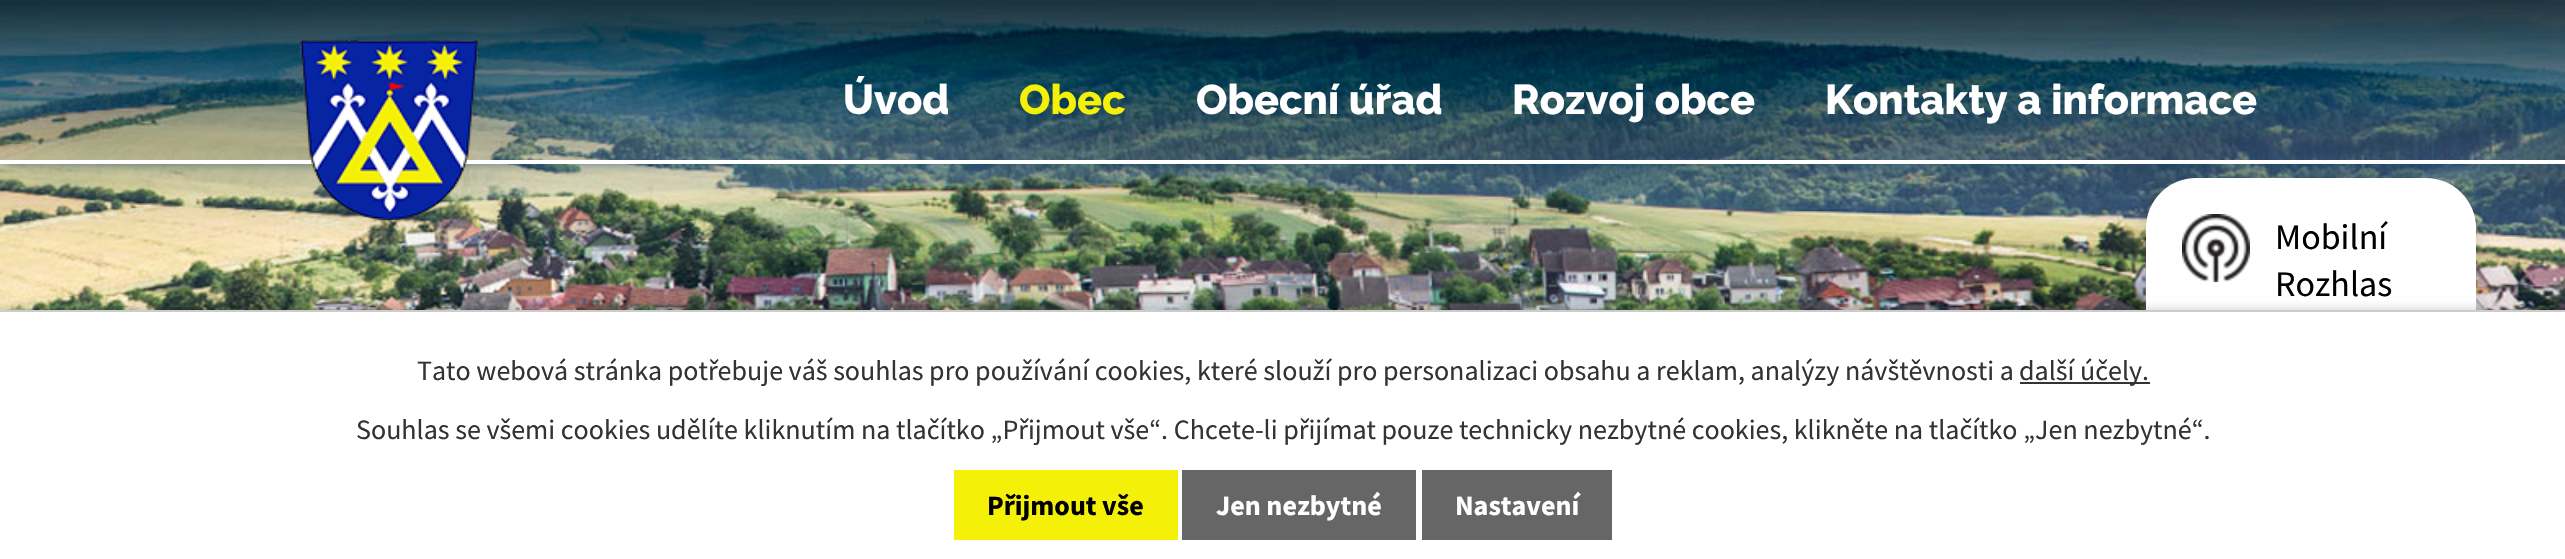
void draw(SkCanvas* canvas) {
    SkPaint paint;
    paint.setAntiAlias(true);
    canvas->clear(0xFFFFFFFF);
    canvas->drawImageRect(SkImages::DeferredFromEncodedData(SkData::MakeFromFileName("img1.png")), SkRect::MakeXYWH(0, 0, 2565, 310), SkSamplingOptions());
    canvas->save();
    canvas->clipPath(SkPathBuilder(SkPathFillType::kEvenOdd).moveTo(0, 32).lineTo(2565, 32).lineTo(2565, 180).lineTo(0, 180).close().moveTo(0, 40).lineTo(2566, 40).lineTo(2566, 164).lineTo(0, 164).close().detach(), true);
    paint.setColor(0x80003F65);
    paint.setMaskFilter(SkMaskFilter::MakeBlur(kNormal_SkBlurStyle, 5));
    canvas->drawRect(SkRect::MakeXYWH(8, 48, 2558, 116), paint);
    paint.setMaskFilter(nullptr);
    canvas->restore();
    paint.setColor(0xFFFFFFFF);
    canvas->drawRect(SkRect::MakeXYWH(0, 160, 2565, 4), paint);
    canvas->drawImageRect(SkImages::DeferredFromEncodedData(SkData::MakeFromFileName("img2.png")), SkRect::MakeXYWH(300, 40, 178, 180), SkSamplingOptions());
    SkFont font1(fontMgr->matchFamilyStyle("Raleway", SkFontStyle(800, SkFontStyle::kNormal_Width, SkFontStyle::kUpright_Slant)), 41.4f);
    font1.setSubpixel(true);
    canvas->drawString("Úvod", 843, 114, font1, paint);
    paint.setColor(0xFFF4F008);
    canvas->drawString("Obec", 1019, 114, font1, paint);
    paint.setColor(0xFFFFFFFF);
    canvas->drawString("Obecní úřad", 1196, 114, font1, paint);
    canvas->drawString("Rozvoj obce", 1512, 114, font1, paint);
    canvas->drawString("Kontakty a informace", 1825, 114, font1, paint);
    paint.setColor(0x33000000);
    paint.setMaskFilter(SkMaskFilter::MakeBlur(kNormal_SkBlurStyle, 10));
    canvas->drawRoundRect(SkRect::MakeXYWH(2146, 184, 330, 292), 50, 50, paint);
    paint.setMaskFilter(nullptr);
    paint.setColor(0xFFFFFFFF);
    canvas->drawRoundRect(SkRect::MakeXYWH(2146, 178, 330, 292), 50, 50, paint);
    canvas->drawImageRect(SkImages::DeferredFromEncodedData(SkData::MakeFromFileName("img3.png")), SkRect::MakeXYWH(2182, 214, 68, 68), SkSamplingOptions());
    SkFont font2(fontMgr->matchFamilyStyle("Source Sans Pro", SkFontStyle::Normal()), 36);
    font2.setSubpixel(true);
    paint.setColor(0xFF000000);
    canvas->drawString("Mobilní", 2275, 249, font2, paint);
    canvas->drawString("Rozhlas", 2275, 296, font2, paint);
    paint.setColor(0x33000000);
    paint.setMaskFilter(SkMaskFilter::MakeBlur(kNormal_SkBlurStyle, 5));
    canvas->drawRect(SkRect::MakeXYWH(0, 310, 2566, 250), paint);
    paint.setMaskFilter(nullptr);
    paint.setColor(0xFFFFFFFF);
    canvas->drawRect(SkRect::MakeXYWH(0, 312, 2565, 247), paint);
    paint.setColor(0xFFCCCCCC);
    canvas->drawRect(SkRect::MakeXYWH(0, 310, 2565, 2), paint);
    SkFont font3(fontMgr->matchFamilyStyle("Source Sans Pro", SkFontStyle::Normal()), 28);
    font3.setSubpixel(true);
    paint.setColor(0xFF333333);
    canvas->drawString("Tato webová stránka potřebuje váš souhlas pro používání cookies, které slouží pro personalizaci obsahu a reklam, analýzy návštěvnosti a", 417, 380, font3, paint);
    canvas->drawRect(SkRect::MakeXYWH(2020, 382, 130, 2), paint);
    canvas->drawString("další účely.", 2019, 380, font3, paint);
    canvas->drawString("Souhlas se všemi cookies udělíte kliknutím na tlačítko „Přijmout vše“. Chcete-li přijímat pouze technicky nezbytné cookies, klikněte na tlačítko „Jen nezbytné“.", 356, 439, font3, paint);
    paint.setColor(0xFFF4F008);
    canvas->drawRect(SkRect::MakeXYWH(954, 470, 224, 70), paint);
    SkFont font4(fontMgr->matchFamilyStyle("Source Sans Pro", SkFontStyle::Bold()), 28);
    font4.setSubpixel(true);
    paint.setColor(0xFF000000);
    canvas->drawString("Přijmout vše", 987, 515, font4, paint);
    paint.setColor(0xFF666666);
    canvas->drawRect(SkRect::MakeXYWH(1182, 470, 234, 70), paint);
    paint.setColor(0xFFFFFFFF);
    canvas->drawString("Jen nezbytné", 1216, 515, font4, paint);
    paint.setColor(0xFF666666);
    canvas->drawRect(SkRect::MakeXYWH(1422, 470, 190, 70), paint);
    paint.setColor(0xFFFFFFFF);
    canvas->drawString("Nastavení", 1455, 515, font4, paint);
}
